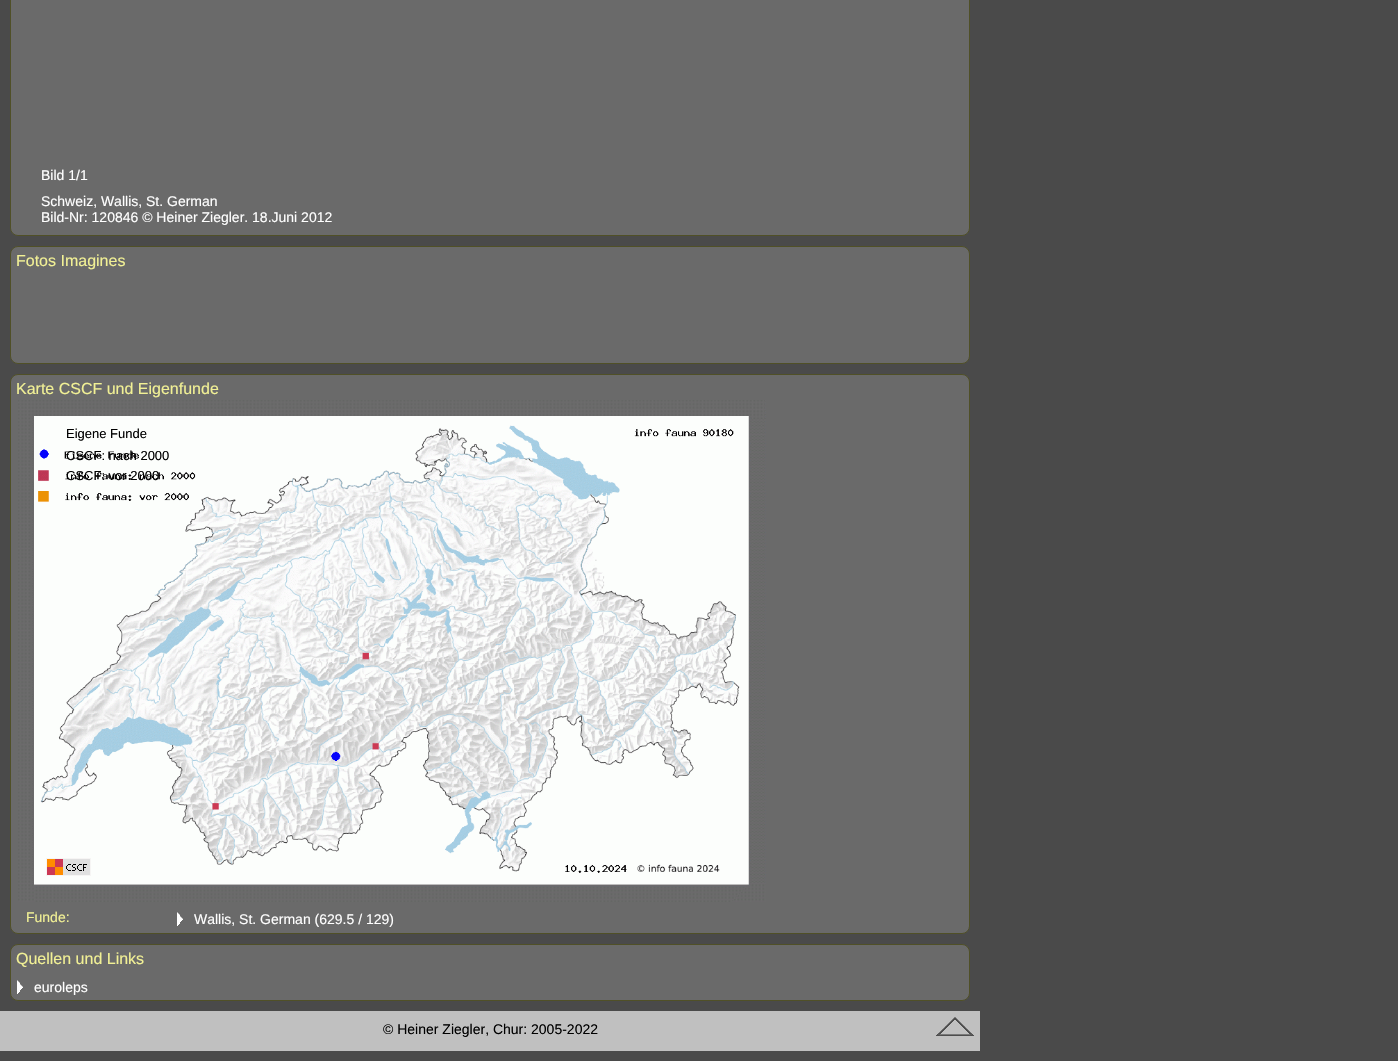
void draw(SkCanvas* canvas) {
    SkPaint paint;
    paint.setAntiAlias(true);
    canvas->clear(0xFF4A4A4A);
    paint.setColor(0xFF6A6A6A);
    canvas->drawRoundRect(SkRect::MakeXYWH(10.5f, -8.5f, 959, 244), 7.5f, 7.5f, paint);
    paint.setStyle(SkPaint::kStroke_Style);
    paint.setStrokeWidth(1);
    paint.setColor(0xFF505027);
    canvas->drawRoundRect(SkRect::MakeXYWH(10.5f, -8.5f, 959, 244), 7.5f, 7.5f, paint);
    SkFont font1(fontMgr->matchFamilyStyle("Liberation Sans", SkFontStyle::Normal()), 14);
    font1.setSubpixel(true);
    paint.setStyle(SkPaint::kFill_Style);
    paint.setColor(0xFFFFFFFF);
    canvas->drawString("Bild 1/1", 41, 180, font1, paint);
    canvas->drawString("Schweiz, Wallis, St. German", 41, 206, font1, paint);
    canvas->drawString("Bild-Nr: 120846 © Heiner Ziegler. 18.Juni 2012", 41, 222, font1, paint);
    paint.setColor(0xFF6A6A6A);
    canvas->drawRoundRect(SkRect::MakeXYWH(10.5f, 246.5f, 959, 117), 7.5f, 7.5f, paint);
    paint.setStyle(SkPaint::kStroke_Style);
    paint.setColor(0xFF505027);
    canvas->drawRoundRect(SkRect::MakeXYWH(10.5f, 246.5f, 959, 117), 7.5f, 7.5f, paint);
    SkFont font2(fontMgr->matchFamilyStyle("Liberation Sans", SkFontStyle::Normal()), 16);
    font2.setSubpixel(true);
    paint.setStyle(SkPaint::kFill_Style);
    paint.setColor(0xFFF1F095);
    canvas->drawString("Fotos Imagines", 16, 266, font2, paint);
    paint.setColor(0xFF6A6A6A);
    canvas->drawRoundRect(SkRect::MakeXYWH(10.5f, 374.5f, 959, 559), 7.5f, 7.5f, paint);
    paint.setStyle(SkPaint::kStroke_Style);
    paint.setColor(0xFF505027);
    canvas->drawRoundRect(SkRect::MakeXYWH(10.5f, 374.5f, 959, 559), 7.5f, 7.5f, paint);
    paint.setStyle(SkPaint::kFill_Style);
    paint.setColor(0xFFF1F095);
    canvas->drawString("Karte CSCF und Eigenfunde", 16, 394, font2, paint);
    canvas->drawImageRect(SkImages::DeferredFromEncodedData(SkData::MakeFromFileName("img1.png")), SkRect::MakeXYWH(18, 400, 748, 502), SkSamplingOptions());
    SkFont font3(fontMgr->matchFamilyStyle("Liberation Sans", SkFontStyle::Normal()), 13);
    font3.setSubpixel(true);
    paint.setColor(0xFF000000);
    canvas->drawString("Eigene Funde", 66, 438, font3, paint);
    canvas->drawString("CSCF: nach 2000", 66, 460, font3, paint);
    canvas->drawString("CSCF: vor 2000", 66, 480, font3, paint);
    canvas->drawImageRect(SkImages::DeferredFromEncodedData(SkData::MakeFromFileName("img2.png")), SkRect::MakeXYWH(46, 858, 45, 18), SkSamplingOptions());
    paint.setColor(0xFFF1F095);
    canvas->drawString("Funde:", 26, 922, font1, paint);
    canvas->drawImageRect(SkImages::DeferredFromEncodedData(SkData::MakeFromFileName("img3.png")), SkRect::MakeXYWH(177, 912, 6, 14), SkSamplingOptions());
    paint.setColor(0xFFFFFFFF);
    canvas->drawString("Wallis, St. German (629.5 / 129)", 194, 924, font1, paint);
    paint.setColor(0xFF6A6A6A);
    canvas->drawRoundRect(SkRect::MakeXYWH(10.5f, 944.5f, 959, 56), 7.5f, 7.5f, paint);
    paint.setStyle(SkPaint::kStroke_Style);
    paint.setColor(0xFF505027);
    canvas->drawRoundRect(SkRect::MakeXYWH(10.5f, 944.5f, 959, 56), 7.5f, 7.5f, paint);
    paint.setStyle(SkPaint::kFill_Style);
    paint.setColor(0xFFF1F095);
    canvas->drawString("Quellen und Links", 16, 964, font2, paint);
    canvas->drawImageRect(SkImages::DeferredFromEncodedData(SkData::MakeFromFileName("img3.png")), SkRect::MakeXYWH(17, 980, 6, 14), SkSamplingOptions());
    paint.setColor(0xFFFFFFFF);
    canvas->drawString("euroleps", 34, 992, font1, paint);
    paint.setColor(0xFFC0C0C0);
    canvas->drawRect(SkRect::MakeXYWH(0, 1011, 980, 40), paint);
    paint.setColor(0xFF000000);
    canvas->drawString("© Heiner Ziegler, Chur: 2005-2022", 383, 1034, font1, paint);
    canvas->drawImageRect(SkImages::DeferredFromEncodedData(SkData::MakeFromFileName("img4.png")), SkRect::MakeXYWH(936, 1017, 38, 19), SkSamplingOptions());
}
